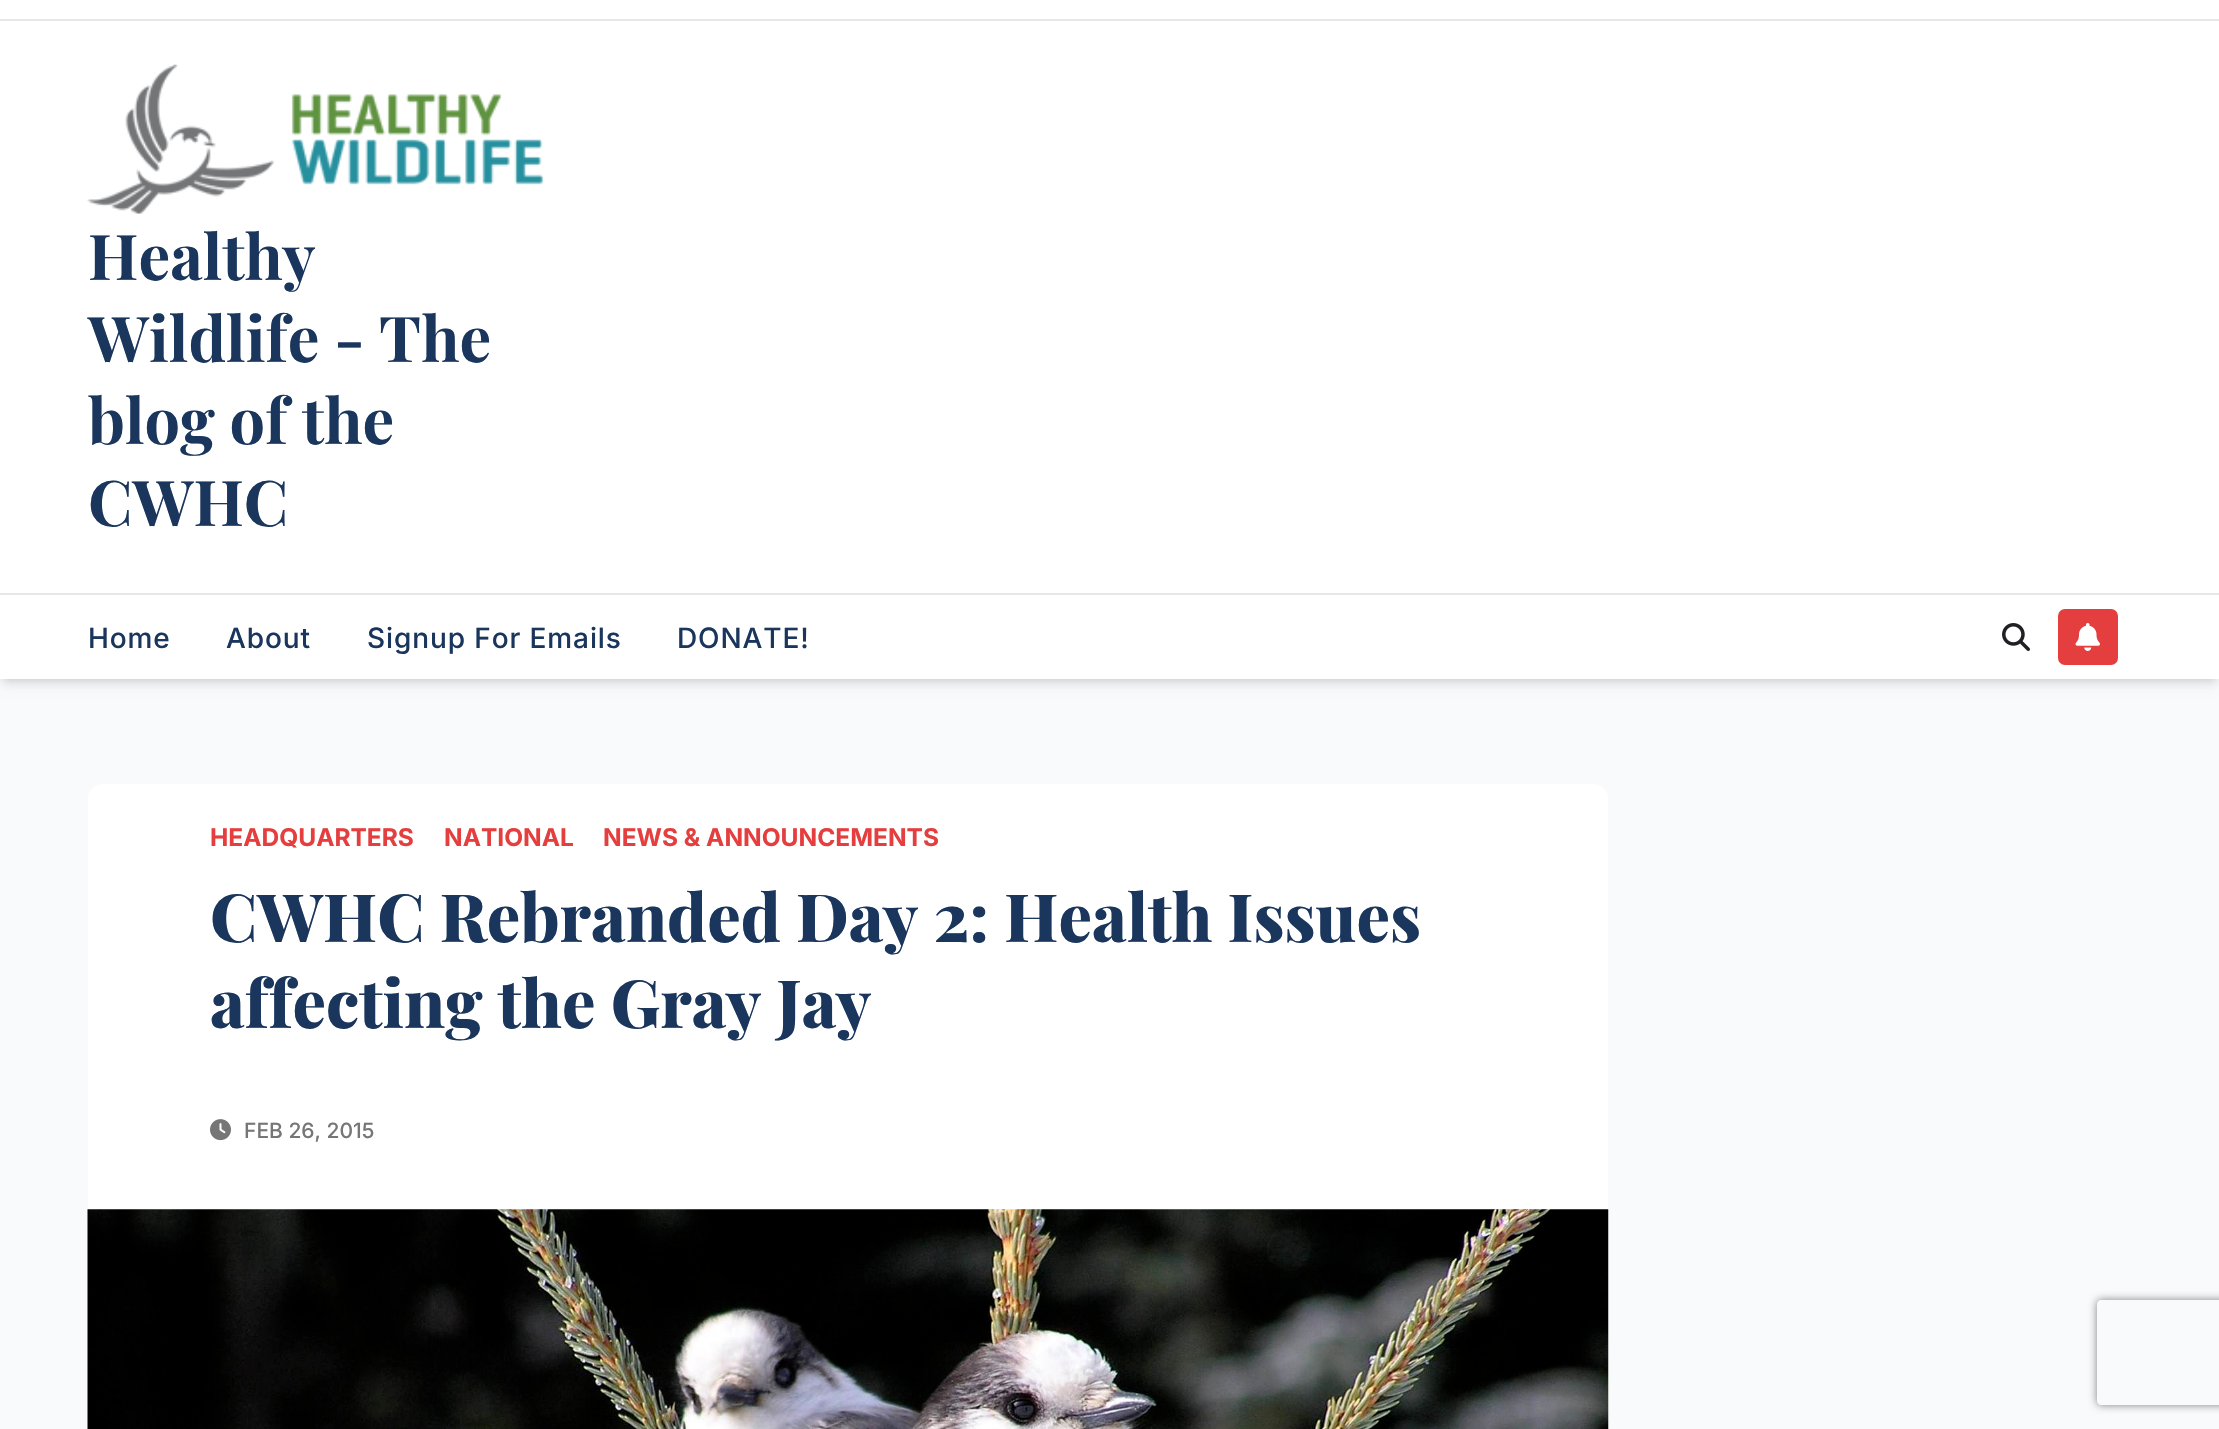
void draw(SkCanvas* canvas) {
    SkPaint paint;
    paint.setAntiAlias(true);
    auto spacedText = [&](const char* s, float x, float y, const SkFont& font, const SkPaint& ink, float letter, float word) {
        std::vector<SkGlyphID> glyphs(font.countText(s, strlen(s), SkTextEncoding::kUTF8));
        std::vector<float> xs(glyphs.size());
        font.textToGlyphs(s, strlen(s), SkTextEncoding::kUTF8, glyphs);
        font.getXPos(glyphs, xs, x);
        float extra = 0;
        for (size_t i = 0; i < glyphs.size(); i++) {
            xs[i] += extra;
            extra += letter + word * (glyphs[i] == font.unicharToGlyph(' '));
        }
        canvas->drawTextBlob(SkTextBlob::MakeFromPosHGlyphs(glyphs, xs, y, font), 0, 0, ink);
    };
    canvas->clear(0xFFF9FAFB);
    paint.setColor(0x1A000000);
    paint.setMaskFilter(SkMaskFilter::MakeBlur(kNormal_SkBlurStyle, 3.5f));
    canvas->drawRect(SkRect::MakeXYWH(4, 7, 2212, 672), paint);
    paint.setMaskFilter(nullptr);
    paint.setMaskFilter(SkMaskFilter::MakeBlur(kNormal_SkBlurStyle, 5));
    canvas->drawRect(SkRect::MakeXYWH(2, 9, 2215, 675), paint);
    paint.setMaskFilter(nullptr);
    paint.setColor(0xFFFFFFFF);
    canvas->drawRect(SkRect::MakeXYWH(0, 0, 2219, 19), paint);
    canvas->drawRect(SkRect::MakeXYWH(0, 21, 2219, 572), paint);
    paint.setColor(0xFFE5E7EB);
    canvas->drawRect(SkRect::MakeXYWH(0, 19, 2219, 2), paint);
    canvas->drawRect(SkRect::MakeXYWH(0, 593, 2219, 2), paint);
    canvas->drawImageRect(SkImages::DeferredFromEncodedData(SkData::MakeFromFileName("img1.png")), SkRect::MakeXYWH(87, 64, 456, 150), SkSamplingOptions());
    SkFont font1(fontMgr->matchFamilyStyle("Playfair Display", SkFontStyle::Bold()), 63);
    font1.setSubpixel(true);
    paint.setColor(0xFF1A365D);
    canvas->drawString("Healthy", 88, 280, font1, paint);
    canvas->drawString("Wildlife - The", 88, 362, font1, paint);
    canvas->drawString("blog of the", 88, 444, font1, paint);
    canvas->drawString("CWHC", 88, 526, font1, paint);
    paint.setColor(0xFFFFFFFF);
    canvas->drawRect(SkRect::MakeXYWH(0, 595, 2219, 84), paint);
    SkFont font2(fontMgr->matchFamilyStyle("Inter", SkFontStyle(500, SkFontStyle::kNormal_Width, SkFontStyle::kUpright_Slant)), 28);
    font2.setSubpixel(true);
    paint.setColor(0xFF1A365D);
    spacedText("Home", 88, 648, font2, paint, 0.9f, 0);
    spacedText("About", 226, 648, font2, paint, 0.9f, 0);
    spacedText("Signup For Emails", 367, 648, font2, paint, 0.9f, 0);
    spacedText("DONATE!", 677, 648, font2, paint, 0.9f, 0);
    canvas->drawImageRect(SkImages::DeferredFromEncodedData(SkData::MakeFromFileName("img2.png")), SkRect::MakeXYWH(2002, 623, 28, 28), SkSamplingOptions());
    paint.setColor(0xFFE53E3E);
    canvas->drawRoundRect(SkRect::MakeXYWH(2058, 609, 60, 56), 7, 7, paint);
    canvas->drawImageRect(SkImages::DeferredFromEncodedData(SkData::MakeFromFileName("img3.png")), SkRect::MakeXYWH(2075, 623, 25, 28), SkSamplingOptions());
    paint.setColor(0xFFFFFFFF);
    canvas->drawRoundRect(SkRect::MakeXYWH(88, 784, 1520, 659), 14, 14, paint);
    SkFont font3(fontMgr->matchFamilyStyle("Inter", SkFontStyle::Bold()), 24.5f);
    font3.setSubpixel(true);
    paint.setColor(0xFFE53E3E);
    canvas->drawString("HEADQUARTERS", 210, 846, font3, paint);
    canvas->drawString("NATIONAL", 444, 846, font3, paint);
    canvas->drawString("NEWS & ANNOUNCEMENTS", 603, 846, font3, paint);
    SkFont font4(fontMgr->matchFamilyStyle("Playfair Display", SkFontStyle(800, SkFontStyle::kNormal_Width, SkFontStyle::kUpright_Slant)), 66.5f);
    font4.setSubpixel(true);
    paint.setColor(0xFF1A365D);
    canvas->drawString("CWHC Rebranded Day 2: Health Issues", 210, 942, font4, paint);
    canvas->drawString("affecting the Gray Jay", 210, 1028, font4, paint);
    canvas->drawImageRect(SkImages::DeferredFromEncodedData(SkData::MakeFromFileName("img4.png")), SkRect::MakeXYWH(210, 1119, 21, 22), SkSamplingOptions());
    SkFont font5(fontMgr->matchFamilyStyle("Inter", SkFontStyle(500, SkFontStyle::kNormal_Width, SkFontStyle::kUpright_Slant)), 21);
    font5.setSubpixel(true);
    paint.setColor(0xFF767676);
    canvas->drawString("FEB 26, 2015", 244, 1138, font5, paint);
    canvas->drawImageRect(SkImages::DeferredFromEncodedData(SkData::MakeFromFileName("img5.png")), SkRect::MakeXYWH(87, 1209, 1522, 220), SkSamplingOptions());
    canvas->save();
    canvas->clipPath(SkPathBuilder(SkPathFillType::kEvenOdd).moveTo(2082, 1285).lineTo(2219, 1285).lineTo(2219, 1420).lineTo(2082, 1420).close().moveTo(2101, 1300).lineTo(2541, 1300).cubicTo(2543, 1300, 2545, 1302, 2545, 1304).lineTo(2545, 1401).cubicTo(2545, 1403, 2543, 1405, 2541, 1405).lineTo(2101, 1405).cubicTo(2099, 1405, 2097, 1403, 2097, 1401).lineTo(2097, 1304).cubicTo(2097, 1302, 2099, 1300, 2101, 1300).close().detach(), true);
    paint.setColor(0xFF808080);
    paint.setMaskFilter(SkMaskFilter::MakeBlur(kNormal_SkBlurStyle, 4.5f));
    canvas->drawRoundRect(SkRect::MakeXYWH(2097, 1300, 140, 105), 4, 4, paint);
    paint.setMaskFilter(nullptr);
    canvas->restore();
}
